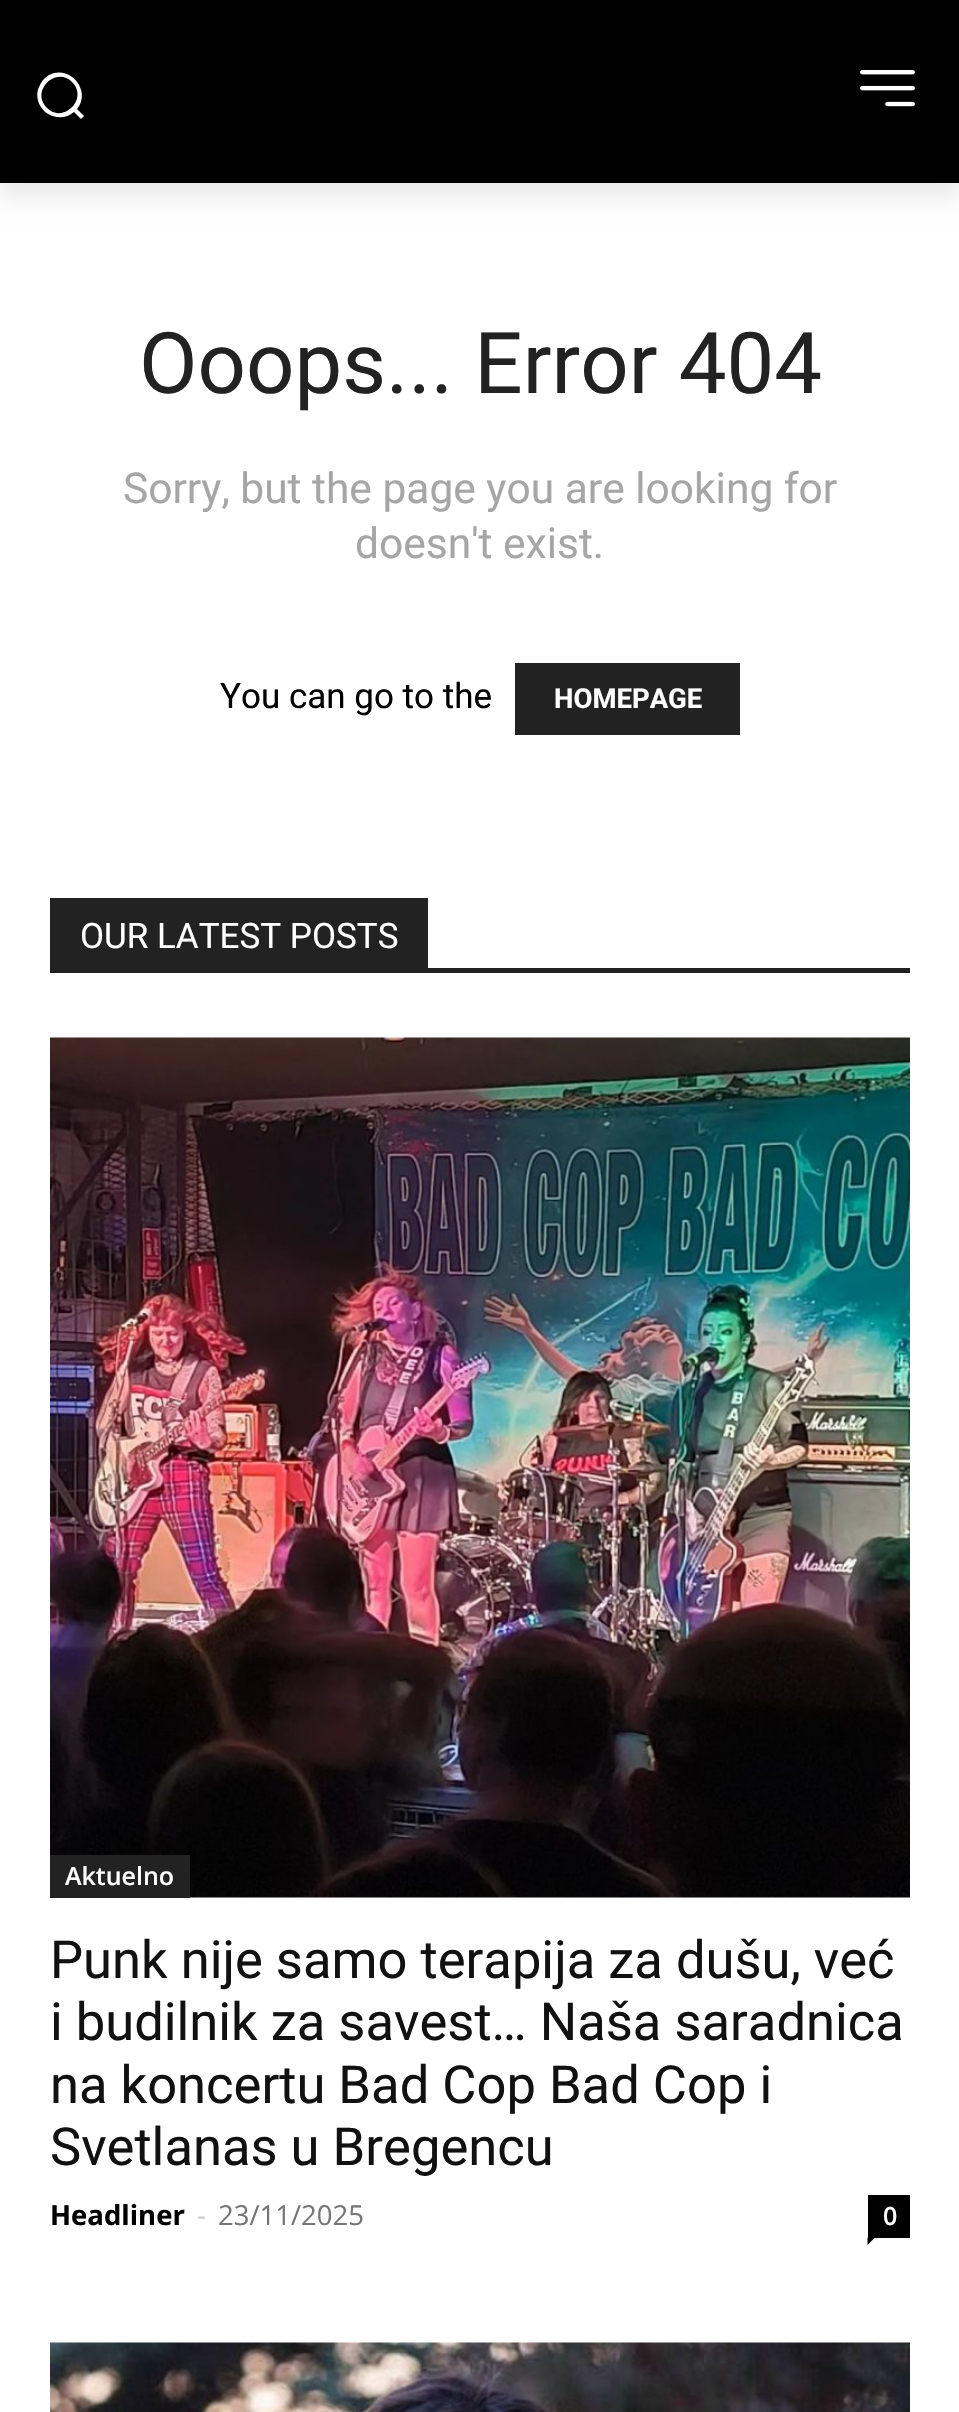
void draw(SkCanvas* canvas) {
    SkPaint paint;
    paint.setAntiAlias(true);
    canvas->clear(0xFFFFFFFF);
    paint.setColor(0xFF000000);
    canvas->drawRect(SkRect::MakeXYWH(0, 0, 959, 183), paint);
    paint.setColor(0xFFFFFFFF);
    canvas->drawPath(SkPathBuilder().moveTo(84, 116).lineTo(77, 109).cubicTo(92, 91, 70, 64, 49, 75).cubicTo(44, 78, 41, 82, 39, 87).cubicTo(36, 93, 37, 101, 41, 107).cubicTo(48, 118, 64, 121, 74, 112).lineTo(81, 119).close().moveTo(47, 108).cubicTo(30, 91, 56, 66, 72, 82).cubicTo(89, 99, 63, 124, 47, 108).close().detach(), paint);
    canvas->drawImageRect(SkImages::DeferredFromEncodedData(SkData::MakeFromFileName("img1.png")), SkRect::MakeXYWH(860, 70, 55, 37), SkSamplingOptions());
    canvas->save();
    canvas->clipPath(SkPathBuilder(SkPathFillType::kEvenOdd).moveTo(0, 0).lineTo(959, 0).lineTo(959, 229).lineTo(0, 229).close().moveTo(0, 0).lineTo(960, 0).lineTo(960, 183).lineTo(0, 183).close().detach(), true);
    paint.setColor(0x14000000);
    paint.setMaskFilter(SkMaskFilter::MakeBlur(kNormal_SkBlurStyle, 10));
    canvas->drawRect(SkRect::MakeXYWH(0, 15, 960, 183), paint);
    paint.setMaskFilter(nullptr);
    canvas->restore();
    SkFont font1(fontMgr->matchFamilyStyle("Roboto", SkFontStyle::Normal()), 85);
    font1.setSubpixel(true);
    paint.setColor(0xFF222222);
    canvas->drawString("Ooops... Error 404", 139, 393, font1, paint);
    SkFont font2(fontMgr->matchFamilyStyle("Roboto", SkFontStyle::Normal()), 42.5f);
    font2.setSubpixel(true);
    paint.setColor(0xFFA6A6A6);
    canvas->drawString("Sorry, but the page you are looking for", 123, 503, font2, paint);
    canvas->drawString("doesn't exist.", 355, 558, font2, paint);
    SkFont font3(fontMgr->matchFamilyStyle("Roboto", SkFontStyle::Normal()), 35);
    font3.setSubpixel(true);
    paint.setColor(0xFF000000);
    canvas->drawString("You can go to the", 220, 708, font3, paint);
    paint.setColor(0xFF222222);
    canvas->drawRect(SkRect::MakeXYWH(515, 663, 225, 72), paint);
    SkFont font4(fontMgr->matchFamilyStyle("Roboto", SkFontStyle::Bold()), 27.5f);
    font4.setSubpixel(true);
    paint.setColor(0xFFFFFFFF);
    canvas->drawString("HOMEPAGE", 554, 708, font4, paint);
    paint.setColor(0xFF222222);
    canvas->drawRect(SkRect::MakeXYWH(50, 968, 860, 5), paint);
    canvas->drawRect(SkRect::MakeXYWH(50, 898, 378, 70), paint);
    paint.setColor(0xFFFFFFFF);
    canvas->drawString("OUR LATEST POSTS", 80, 948, font3, paint);
    canvas->drawImageRect(SkImages::DeferredFromEncodedData(SkData::MakeFromFileName("img2.png")), SkRect::MakeXYWH(50, 1037, 860, 861), SkSamplingOptions());
    paint.setColor(0xFF222222);
    canvas->drawRect(SkRect::MakeXYWH(50, 1855, 140, 43), paint);
    SkFont font5(fontMgr->matchFamilyStyle("Open Sans", SkFontStyle(600, SkFontStyle::kNormal_Width, SkFontStyle::kUpright_Slant)), 25);
    font5.setSubpixel(true);
    paint.setColor(0xFFFFFFFF);
    canvas->drawString("Aktuelno", 65, 1885, font5, paint);
    SkFont font6(fontMgr->matchFamilyStyle("Roboto", SkFontStyle::Normal()), 52.5f);
    font6.setSubpixel(true);
    paint.setColor(0xFF111111);
    canvas->drawString("Punk nije samo terapija za dušu, već", 50, 1978, font6, paint);
    canvas->drawString("i budilnik za savest… Naša saradnica", 50, 2040, font6, paint);
    canvas->drawString("na koncertu Bad Cop Bad Cop i", 50, 2103, font6, paint);
    canvas->drawString("Svetlanas u Bregencu", 50, 2165, font6, paint);
    SkFont font7(fontMgr->matchFamilyStyle("Open Sans", SkFontStyle::Bold()), 27.5f);
    font7.setSubpixel(true);
    paint.setColor(0xFF000000);
    canvas->drawString("Headliner", 50, 2225, font7, paint);
    SkFont font8(fontMgr->matchFamilyStyle("Open Sans", SkFontStyle::Normal()), 27.5f);
    font8.setSubpixel(true);
    paint.setColor(0xFFCCCCCC);
    canvas->drawString("-", 197, 2225, font8, paint);
    paint.setColor(0xFF767676);
    canvas->drawString("23/11/2025", 218, 2225, font8, paint);
    paint.setColor(0xFF000000);
    canvas->drawRect(SkRect::MakeXYWH(868, 2195, 42, 43), paint);
    paint.setColor(0xFFFFFFFF);
    canvas->drawString("0", 883, 2225, font5, paint);
    paint.setColor(0xFF000000);
    canvas->drawPath(SkPathBuilder().moveTo(867.5f, 2237.5f).lineTo(875, 2237.5f).lineTo(867.5f, 2245).close().detach(), paint);
    canvas->drawImageRect(SkImages::DeferredFromEncodedData(SkData::MakeFromFileName("img3.png")), SkRect::MakeXYWH(50, 2342, 860, 70), SkSamplingOptions());
}
